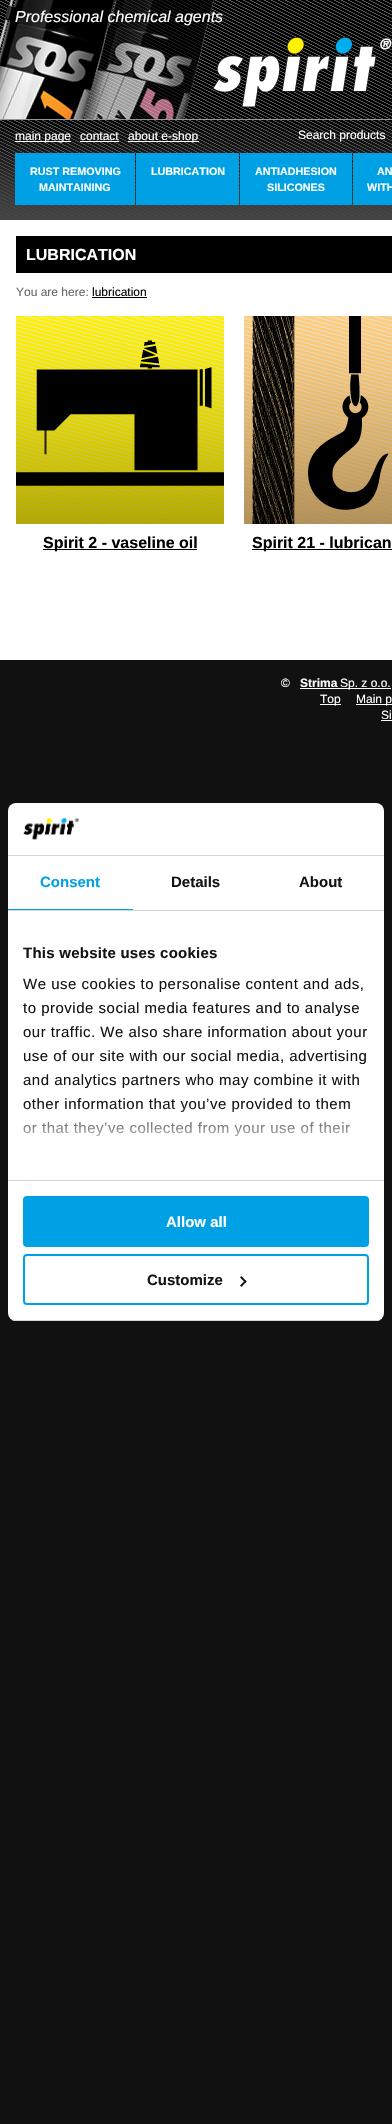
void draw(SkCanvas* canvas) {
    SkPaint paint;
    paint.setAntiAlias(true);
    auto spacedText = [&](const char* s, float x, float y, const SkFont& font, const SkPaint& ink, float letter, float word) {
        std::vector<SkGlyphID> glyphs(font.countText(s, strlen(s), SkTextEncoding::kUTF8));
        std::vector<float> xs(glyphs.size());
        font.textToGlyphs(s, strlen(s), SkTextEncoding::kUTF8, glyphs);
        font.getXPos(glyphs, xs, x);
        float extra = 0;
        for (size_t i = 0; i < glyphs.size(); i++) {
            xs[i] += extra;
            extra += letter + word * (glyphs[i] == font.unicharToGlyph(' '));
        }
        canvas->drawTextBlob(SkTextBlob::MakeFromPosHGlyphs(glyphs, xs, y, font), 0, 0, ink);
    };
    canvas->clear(0xFF111111);
    canvas->drawImageRect(SkImages::DeferredFromEncodedData(SkData::MakeFromFileName("img1.png")), SkRect::MakeXYWH(0, 0, 392, 220), SkSamplingOptions());
    canvas->drawImageRect(SkImages::DeferredFromEncodedData(SkData::MakeFromFileName("img2.png")), SkRect::MakeXYWH(0, 0, 392, 119), SkSamplingOptions());
    SkFont font1(fontMgr->matchFamilyStyle("Liberation Sans", SkFontStyle::Italic()), 16);
    font1.setSubpixel(true);
    paint.setColor(0xFFFFFFFF);
    canvas->drawString("Professional chemical agents", 15, 22, font1, paint);
    canvas->drawRect(SkRect::MakeXYWH(15, 141, 56, 1), paint);
    SkFont font2(fontMgr->matchFamilyStyle("Liberation Sans", SkFontStyle::Normal()), 12);
    font2.setSubpixel(true);
    canvas->drawString("main page", 15, 140, font2, paint);
    canvas->drawString("contact", 80, 140, font2, paint);
    canvas->drawRect(SkRect::MakeXYWH(80, 141, 39, 1), paint);
    canvas->drawRect(SkRect::MakeXYWH(128, 141, 71, 1), paint);
    canvas->drawString("about e-shop", 128, 140, font2, paint);
    canvas->drawString("Search products", 298, 139, font2, paint);
    paint.setColor(0xFF00A1E4);
    canvas->drawRect(SkRect::MakeXYWH(15, 153, 120, 52), paint);
    SkFont font3(fontMgr->matchFamilyStyle("Liberation Sans", SkFontStyle::Bold()), 10.75f);
    font3.setSubpixel(true);
    paint.setColor(0xFFFFFFFF);
    canvas->drawString("RUST REMOVING", 30, 175, font3, paint);
    canvas->drawString("MAINTAINING", 39, 191, font3, paint);
    paint.setColor(0xFF00A1E4);
    canvas->drawRect(SkRect::MakeXYWH(136, 153, 103, 52), paint);
    paint.setColor(0xFFFFFFFF);
    canvas->drawString("LUBRICATION", 151, 175, font3, paint);
    paint.setColor(0xFF00A1E4);
    canvas->drawRect(SkRect::MakeXYWH(240, 153, 112, 52), paint);
    paint.setColor(0xFFFFFFFF);
    canvas->drawString("ANTIADHESION", 255, 175, font3, paint);
    canvas->drawString("SILICONES", 267, 191, font3, paint);
    paint.setColor(0xFF00A1E4);
    canvas->drawRect(SkRect::MakeXYWH(353, 153, 39, 52), paint);
    paint.setColor(0xFFFFFFFF);
    canvas->drawString("AN", 377, 175, font3, paint);
    canvas->drawString("WITH", 367, 191, font3, paint);
    canvas->drawRect(SkRect::MakeXYWH(0, 220, 392, 440), paint);
    paint.setColor(0xFF000000);
    canvas->drawRect(SkRect::MakeXYWH(16, 236, 376, 37), paint);
    SkFont font4(fontMgr->matchFamilyStyle("Liberation Sans", SkFontStyle::Bold()), 16);
    font4.setSubpixel(true);
    paint.setColor(0xFFFFFFFF);
    canvas->drawString("LUBRICATION", 26, 260, font4, paint);
    paint.setColor(0xFF666666);
    canvas->drawString("You are here:", 16, 296, font2, paint);
    paint.setColor(0xFF000000);
    canvas->drawString("lubrication", 92, 296, font2, paint);
    canvas->drawRect(SkRect::MakeXYWH(92, 297, 55, 1), paint);
    canvas->drawImageRect(SkImages::DeferredFromEncodedData(SkData::MakeFromFileName("img3.png")), SkRect::MakeXYWH(16, 316, 208, 208), SkSamplingOptions());
    canvas->drawRect(SkRect::MakeXYWH(43, 549, 154, 1), paint);
    canvas->drawString("Spirit 2 - vaseline oil", 43, 548, font4, paint);
    canvas->drawImageRect(SkImages::DeferredFromEncodedData(SkData::MakeFromFileName("img4.png")), SkRect::MakeXYWH(244, 316, 148, 208), SkSamplingOptions());
    canvas->drawRect(SkRect::MakeXYWH(252, 549, 140, 1), paint);
    canvas->drawString("Spirit 21 - lubrican", 252, 548, font4, paint);
    paint.setColor(0xFFFFFFFF);
    canvas->drawString("©", 281, 687, font2, paint);
    SkFont font5(fontMgr->matchFamilyStyle("Liberation Sans", SkFontStyle::Bold()), 12);
    font5.setSubpixel(true);
    canvas->drawString("Strima", 300, 687, font5, paint);
    canvas->drawRect(SkRect::MakeXYWH(300, 688, 91, 1), paint);
    canvas->drawString("Sp. z o.o.", 340, 687, font2, paint);
    canvas->drawRect(SkRect::MakeXYWH(320, 704, 21, 1), paint);
    canvas->drawString("Top", 320, 703, font2, paint);
    canvas->drawRect(SkRect::MakeXYWH(356, 704, 36, 1), paint);
    canvas->drawString("Main p", 356, 703, font2, paint);
    canvas->drawString("Si", 381, 719, font2, paint);
    canvas->drawRect(SkRect::MakeXYWH(381, 720, 11, 1), paint);
    canvas->drawRoundRect(SkRect::MakeXYWH(8, 803, 376, 518), 8, 8, paint);
    paint.setColor(0xFFD6D6D6);
    canvas->drawRect(SkRect::MakeXYWH(8, 855, 376, 1), paint);
    canvas->drawImageRect(SkImages::DeferredFromEncodedData(SkData::MakeFromFileName("img5.png")), SkRect::MakeXYWH(23, 817, 56, 23), SkSamplingOptions());
    canvas->drawRect(SkRect::MakeXYWH(8, 910, 376, 1), paint);
    paint.setColor(0xFF00A1E4);
    canvas->drawRect(SkRect::MakeXYWH(8, 909, 125, 1), paint);
    SkFont font6(fontMgr->matchFamilyStyle("Liberation Sans", SkFontStyle::Bold()), 15);
    font6.setSubpixel(true);
    canvas->drawString("Consent", 40, 887, font6, paint);
    paint.setColor(0xFF141414);
    canvas->drawString("Details", 171, 887, font6, paint);
    canvas->drawString("About", 299, 887, font6, paint);
    paint.setColor(0xFFD6D6D6);
    canvas->drawRect(SkRect::MakeXYWH(8, 1180, 376, 1), paint);
    paint.setColor(0xFF141414);
    spacedText("This website uses cookies", 23, 958, font6, paint, 0.25f, 0);
    SkFont font7(fontMgr->matchFamilyStyle("Liberation Sans", SkFontStyle::Normal()), 15);
    font7.setSubpixel(true);
    spacedText("We use cookies to personalise content and ads,", 23, 989, font7, paint, 0.5f, 0);
    spacedText("to provide social media features and to analyse", 23, 1013, font7, paint, 0.5f, 0);
    spacedText("our traffic. We also share information about your", 23, 1037, font7, paint, 0.5f, 0);
    spacedText("use of our site with our social media, advertising", 23, 1061, font7, paint, 0.5f, 0);
    spacedText("and analytics partners who may combine it with", 23, 1085, font7, paint, 0.5f, 0);
    spacedText("other information that you’ve provided to them", 23, 1109, font7, paint, 0.5f, 0);
    spacedText("or that they’ve collected from your use of their", 23, 1133, font7, paint, 0.5f, 0);
    {
        const SkColor colors[] = {0xFFFFFFFF, 0xCCFFFFFF, 0x00FFFFFF};
        const float stops[] = {0, 0.5f, 1};
        const SkPoint ends[] = {{190, 1180}, {190, 1105}};
        paint.setShader(SkGradientShader::MakeLinear(ends, colors, stops, 3, SkTileMode::kClamp));
        paint.setAlpha(255);
    }
    canvas->drawRect(SkRect::MakeXYWH(23, 1106, 327, 31), paint);
    canvas->save();
    canvas->clipPath(SkPathBuilder().moveTo(16, 803).lineTo(376, 803).cubicTo(380.5f, 803, 384, 806.5f, 384, 811).lineTo(384, 1313).cubicTo(384, 1317.5f, 380.5f, 1321, 376, 1321).lineTo(16, 1321).cubicTo(11.5f, 1321, 8, 1317.5f, 8, 1313).lineTo(8, 811).cubicTo(8, 806.5f, 11.5f, 803, 16, 803).close().detach(), true);
    paint.setShader(nullptr);
    paint.setColor(0xFFD6D6D6);
    canvas->drawRect(SkRect::MakeXYWH(8, 1320, 376, 1), paint);
    canvas->restore();
    paint.setColor(0xFF00A1E4);
    canvas->drawRoundRect(SkRect::MakeXYWH(24, 1197, 344, 49), 3, 3, paint);
    paint.setStyle(SkPaint::kStroke_Style);
    paint.setStrokeWidth(2);
    canvas->drawRoundRect(SkRect::MakeXYWH(24, 1197, 344, 49), 3, 3, paint);
    paint.setStyle(SkPaint::kFill_Style);
    paint.setColor(0xFFFFFFFF);
    canvas->drawString("Allow all", 166, 1227, font6, paint);
    paint.setStyle(SkPaint::kStroke_Style);
    paint.setColor(0xFF00A1E4);
    canvas->drawRoundRect(SkRect::MakeXYWH(24, 1255, 344, 49), 3, 3, paint);
    paint.setStyle(SkPaint::kFill_Style);
    paint.setColor(0xFF141414);
    canvas->drawString("Customize", 147, 1285, font6, paint);
    canvas->drawPath(SkPathBuilder().moveTo(241.5f, 1276).lineTo(246.5f, 1281.5f).lineTo(245.5f, 1283).lineTo(240, 1277.5f).close().detach(), paint);
    canvas->drawPath(SkPathBuilder().moveTo(245.5f, 1280).lineTo(246.5f, 1281.5f).lineTo(241.5f, 1287).lineTo(240, 1285.5f).close().detach(), paint);
}
